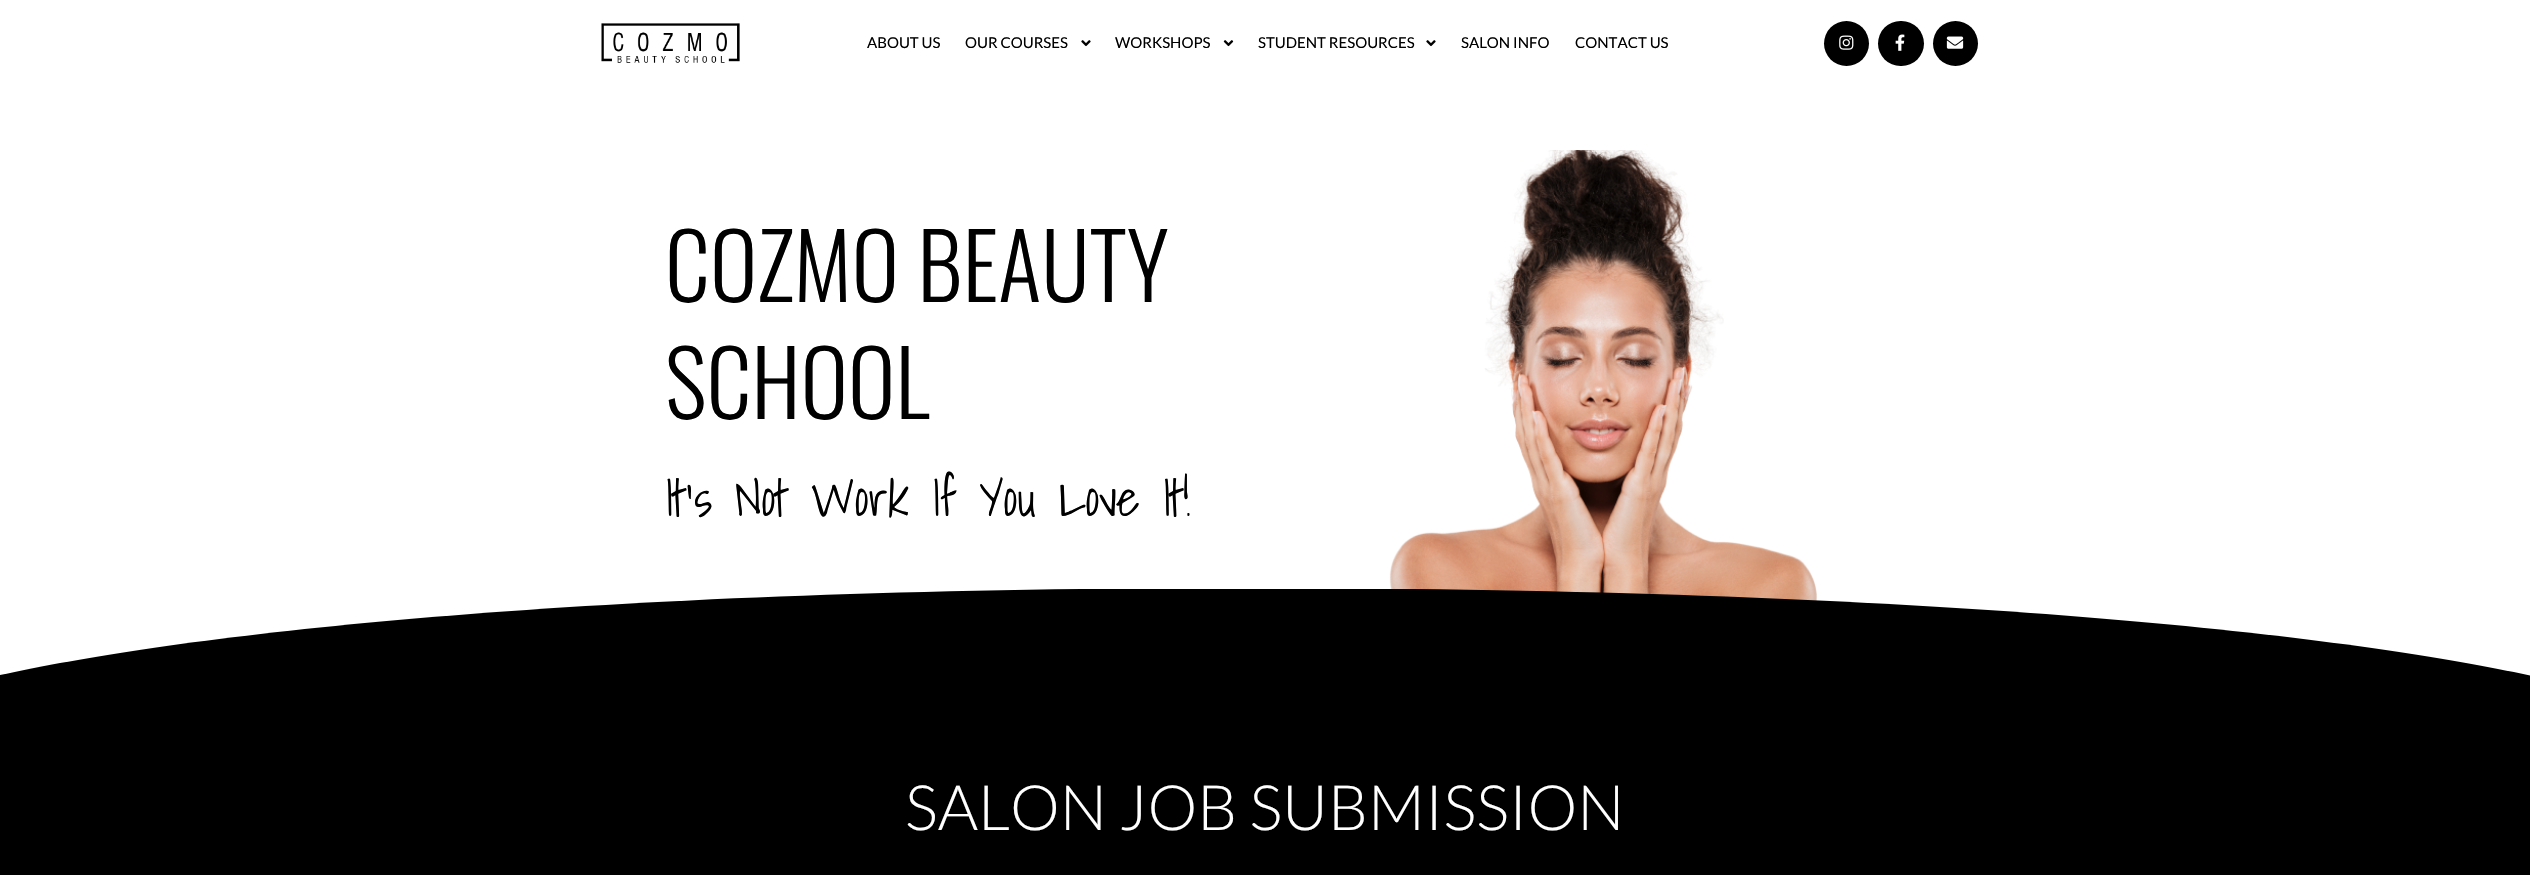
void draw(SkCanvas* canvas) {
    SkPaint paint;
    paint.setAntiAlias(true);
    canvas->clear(0xFFFFFFFF);
    canvas->drawImageRect(SkImages::DeferredFromEncodedData(SkData::MakeFromFileName("img1.png")), SkRect::MakeXYWH(601, 23, 139, 40), SkSamplingOptions());
    SkFont font1(fontMgr->matchFamilyStyle("Lato", SkFontStyle::Normal()), 15);
    font1.setSubpixel(true);
    paint.setColor(0xFF000000);
    canvas->drawString("ABOUT US", 867, 48, font1, paint);
    canvas->drawString("OUR COURSES", 965, 48, font1, paint);
    canvas->drawImageRect(SkImages::DeferredFromEncodedData(SkData::MakeFromFileName("img2.png")), SkRect::MakeXYWH(1081, 40, 10, 7), SkSamplingOptions());
    canvas->drawString("WORKSHOPS", 1115, 48, font1, paint);
    canvas->drawImageRect(SkImages::DeferredFromEncodedData(SkData::MakeFromFileName("img3.png")), SkRect::MakeXYWH(1223, 40, 11, 7), SkSamplingOptions());
    canvas->drawString("STUDENT RESOURCES", 1258, 48, font1, paint);
    canvas->drawImageRect(SkImages::DeferredFromEncodedData(SkData::MakeFromFileName("img2.png")), SkRect::MakeXYWH(1426, 40, 10, 7), SkSamplingOptions());
    canvas->drawString("SALON INFO", 1461, 48, font1, paint);
    canvas->drawString("CONTACT US", 1575, 48, font1, paint);
    canvas->drawCircle(1846.5f, 43.5f, 22.5f, paint);
    canvas->drawImageRect(SkImages::DeferredFromEncodedData(SkData::MakeFromFileName("img4.png")), SkRect::MakeXYWH(1839, 35, 15, 15), SkSamplingOptions());
    canvas->drawRoundRect(SkRect::MakeXYWH(1878, 21, 46, 45), 22.5f, 22.5f, paint);
    canvas->drawImageRect(SkImages::DeferredFromEncodedData(SkData::MakeFromFileName("img5.png")), SkRect::MakeXYWH(1895, 34, 10, 17), SkSamplingOptions());
    canvas->drawCircle(1955.5f, 43.5f, 22.5f, paint);
    canvas->drawImageRect(SkImages::DeferredFromEncodedData(SkData::MakeFromFileName("img6.png")), SkRect::MakeXYWH(1946, 36, 18, 13), SkSamplingOptions());
    SkFont font2(fontMgr->matchFamilyStyle("Oswald", SkFontStyle(300, SkFontStyle::kNormal_Width, SkFontStyle::kUpright_Slant)), 90);
    font2.setSubpixel(true);
    canvas->drawString("COZMO BEAUTY", 665, 302, font2, paint);
    canvas->drawString("SCHOOL", 665, 419, font2, paint);
    SkFont font3(fontMgr->matchFamilyStyle("Shadows Into Light", SkFontStyle(300, SkFontStyle::kNormal_Width, SkFontStyle::kUpright_Slant)), 50);
    font3.setSubpixel(true);
    canvas->drawString("It's Not Work If You Love It!", 665, 516, font3, paint);
    canvas->drawImageRect(SkImages::DeferredFromEncodedData(SkData::MakeFromFileName("img7.png")), SkRect::MakeXYWH(1389, 150, 428, 451), SkSamplingOptions());
    canvas->save();
    canvas->clipRect(SkRect::MakeXYWH(0, 589, 2530, 137));
    canvas->drawPath(SkPathBuilder().moveTo(-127, 720).lineTo(-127, 726).lineTo(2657, 726).lineTo(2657, 720).cubicTo(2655, 694, 2304, 590, 1265, 588).cubicTo(226, 587, -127, 695, -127, 720).close().detach(), paint);
    canvas->restore();
    canvas->drawRect(SkRect::MakeXYWH(0, 726, 2530, 149), paint);
    SkFont font4(fontMgr->matchFamilyStyle("Lato", SkFontStyle(300, SkFontStyle::kNormal_Width, SkFontStyle::kUpright_Slant)), 62.5f);
    font4.setSubpixel(true);
    paint.setColor(0xFFFFFFFF);
    canvas->drawString("SALON JOB SUBMISSION", 905, 830, font4, paint);
}
